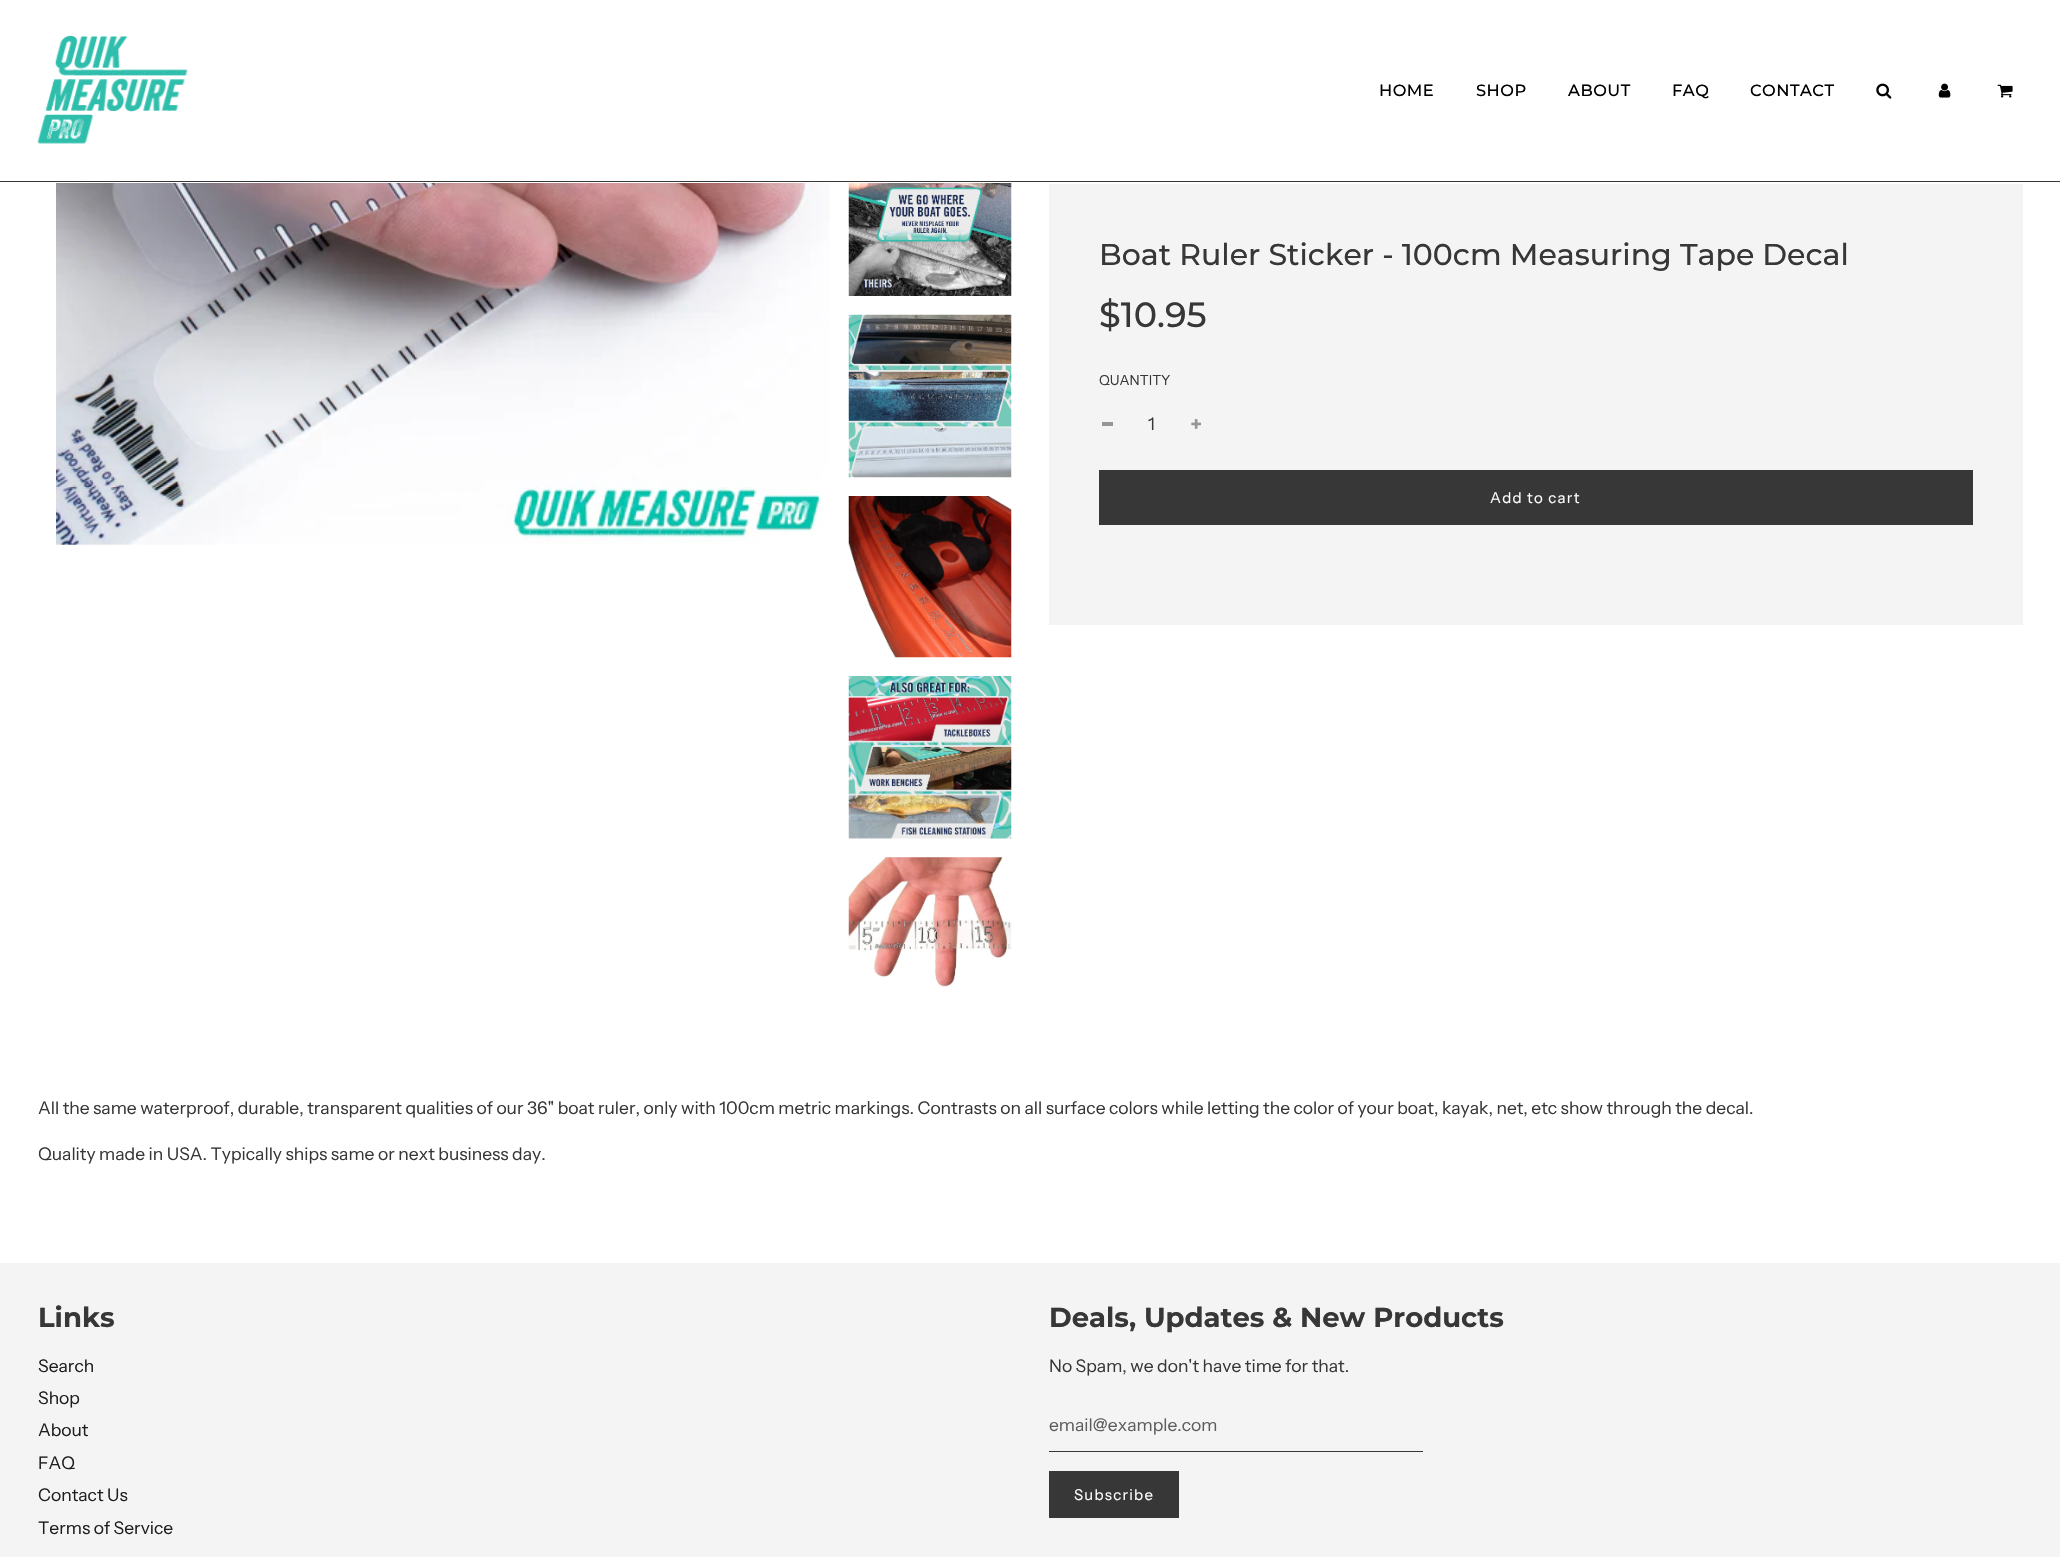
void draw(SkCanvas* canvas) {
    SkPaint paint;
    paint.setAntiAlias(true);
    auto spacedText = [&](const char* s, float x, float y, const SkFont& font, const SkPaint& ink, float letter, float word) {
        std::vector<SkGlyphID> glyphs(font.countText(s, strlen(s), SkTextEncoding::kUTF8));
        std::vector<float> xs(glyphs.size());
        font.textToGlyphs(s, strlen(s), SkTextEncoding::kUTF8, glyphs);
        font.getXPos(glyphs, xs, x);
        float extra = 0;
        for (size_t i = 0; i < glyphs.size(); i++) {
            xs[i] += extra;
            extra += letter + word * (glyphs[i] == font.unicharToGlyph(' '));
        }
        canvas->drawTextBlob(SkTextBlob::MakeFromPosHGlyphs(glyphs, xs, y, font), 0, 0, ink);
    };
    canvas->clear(0xFFFFFFFF);
    paint.setColor(0xFF373737);
    canvas->drawRect(SkRect::MakeXYWH(0, 181, 2060, 1), paint);
    canvas->drawImageRect(SkImages::DeferredFromEncodedData(SkData::MakeFromFileName("img1.png")), SkRect::MakeXYWH(37, 36, 151, 108), SkSamplingOptions());
    SkFont font1(fontMgr->matchFamilyStyle("Montserrat", SkFontStyle(500, SkFontStyle::kNormal_Width, SkFontStyle::kUpright_Slant)), 16.25f);
    font1.setSubpixel(true);
    paint.setColor(0xFF000000);
    spacedText("HOME", 1379, 96, font1, paint, 0.5f, 0);
    spacedText("SHOP", 1476, 96, font1, paint, 0.5f, 0);
    spacedText("ABOUT", 1568, 96, font1, paint, 0.5f, 0);
    spacedText("FAQ", 1672, 96, font1, paint, 0.5f, 0);
    spacedText("CONTACT", 1750, 96, font1, paint, 0.5f, 0);
    canvas->drawImageRect(SkImages::DeferredFromEncodedData(SkData::MakeFromFileName("img2.png")), SkRect::MakeXYWH(1876, 83, 16, 16), SkSamplingOptions());
    canvas->drawImageRect(SkImages::DeferredFromEncodedData(SkData::MakeFromFileName("img3.png")), SkRect::MakeXYWH(1938, 83, 13, 15), SkSamplingOptions());
    canvas->drawImageRect(SkImages::DeferredFromEncodedData(SkData::MakeFromFileName("img4.png")), SkRect::MakeXYWH(1997, 84, 16, 14), SkSamplingOptions());
    canvas->drawImageRect(SkImages::DeferredFromEncodedData(SkData::MakeFromFileName("img5.png")), SkRect::MakeXYWH(56, 183, 774, 362), SkSamplingOptions());
    canvas->drawImageRect(SkImages::DeferredFromEncodedData(SkData::MakeFromFileName("img6.png")), SkRect::MakeXYWH(848, 183, 164, 113), SkSamplingOptions());
    canvas->drawImageRect(SkImages::DeferredFromEncodedData(SkData::MakeFromFileName("img7.png")), SkRect::MakeXYWH(848, 314, 164, 164), SkSamplingOptions());
    canvas->drawImageRect(SkImages::DeferredFromEncodedData(SkData::MakeFromFileName("img8.png")), SkRect::MakeXYWH(848, 496, 164, 162), SkSamplingOptions());
    canvas->drawImageRect(SkImages::DeferredFromEncodedData(SkData::MakeFromFileName("img9.png")), SkRect::MakeXYWH(848, 676, 164, 163), SkSamplingOptions());
    canvas->drawImageRect(SkImages::DeferredFromEncodedData(SkData::MakeFromFileName("img10.png")), SkRect::MakeXYWH(848, 857, 164, 130), SkSamplingOptions());
    paint.setColor(0xFFF4F4F4);
    canvas->drawRect(SkRect::MakeXYWH(1049, 184, 974, 441), paint);
    SkFont font2(fontMgr->matchFamilyStyle("Montserrat", SkFontStyle(500, SkFontStyle::kNormal_Width, SkFontStyle::kUpright_Slant)), 30);
    font2.setSubpixel(true);
    paint.setColor(0xFF373737);
    canvas->drawString("Boat Ruler Sticker - 100cm Measuring Tape Decal", 1099, 265, font2, paint);
    SkFont font3(fontMgr->matchFamilyStyle("Montserrat", SkFontStyle(500, SkFontStyle::kNormal_Width, SkFontStyle::kUpright_Slant)), 35);
    font3.setSubpixel(true);
    canvas->drawString("$10.95", 1099, 327, font3, paint);
    SkFont font4(fontMgr->matchFamilyStyle("Instrument Sans", SkFontStyle::Normal()), 13.75f);
    font4.setSubpixel(true);
    canvas->drawString("QUANTITY", 1099, 385, font4, paint);
    paint.setColor(0xFF969696);
    canvas->drawRect(SkRect::MakeXYWH(1102, 422, 11, 4), paint);
    SkFont font5(fontMgr->matchFamilyStyle("Instrument Sans", SkFontStyle::Normal()), 17.5f);
    font5.setSubpixel(true);
    paint.setColor(0xFF373737);
    canvas->drawString("1", 1148, 430, font5, paint);
    canvas->drawImageRect(SkImages::DeferredFromEncodedData(SkData::MakeFromFileName("img11.png")), SkRect::MakeXYWH(1191, 419, 11, 10), SkSamplingOptions());
    canvas->drawRect(SkRect::MakeXYWH(1099, 470, 874, 55), paint);
    SkFont font6(fontMgr->matchFamilyStyle("Instrument Sans", SkFontStyle::Normal()), 15);
    font6.setSubpixel(true);
    paint.setColor(0xFFFFFFFF);
    spacedText("Add to cart", 1490, 503, font6, paint, 1.25f, 0);
    paint.setColor(0xFF373737);
    canvas->drawString("All the same waterproof, durable, transparent qualities of our 36\" boat ruler, only with 100cm metric markings. Contrasts on all surface colors while letting the color of your boat, kayak, net, etc show through the decal.", 38, 1114, font5, paint);
    canvas->drawString("Quality made in USA. Typically ships same or next business day.", 38, 1160, font5, paint);
    paint.setColor(0xFFF4F4F4);
    canvas->drawRect(SkRect::MakeXYWH(0, 1263, 2060, 294), paint);
    SkFont font7(fontMgr->matchFamilyStyle("Montserrat", SkFontStyle::Bold()), 27.5f);
    font7.setSubpixel(true);
    paint.setColor(0xFF373737);
    canvas->drawString("Links", 38, 1327, font7, paint);
    paint.setColor(0xFF1E1E1E);
    canvas->drawString("Search", 38, 1372, font5, paint);
    canvas->drawString("Shop", 38, 1404, font5, paint);
    canvas->drawString("About", 38, 1436, font5, paint);
    canvas->drawString("FAQ", 38, 1469, font5, paint);
    canvas->drawString("Contact Us", 38, 1501, font5, paint);
    canvas->drawString("Terms of Service", 38, 1534, font5, paint);
    paint.setColor(0xFF373737);
    canvas->drawString("Deals, Updates & New Products", 1049, 1327, font7, paint);
    canvas->drawString("No Spam, we don't have time for that.", 1049, 1372, font5, paint);
    canvas->drawRect(SkRect::MakeXYWH(1049, 1451, 374, 1), paint);
    paint.setColor(0xFF5D5D5D);
    canvas->drawString("email@example.com", 1049, 1431, font5, paint);
    paint.setColor(0xFF373737);
    canvas->drawRect(SkRect::MakeXYWH(1049, 1471, 130, 47), paint);
    paint.setColor(0xFFFFFFFF);
    spacedText("Subscribe", 1074, 1500, font6, paint, 1.25f, 0);
}
